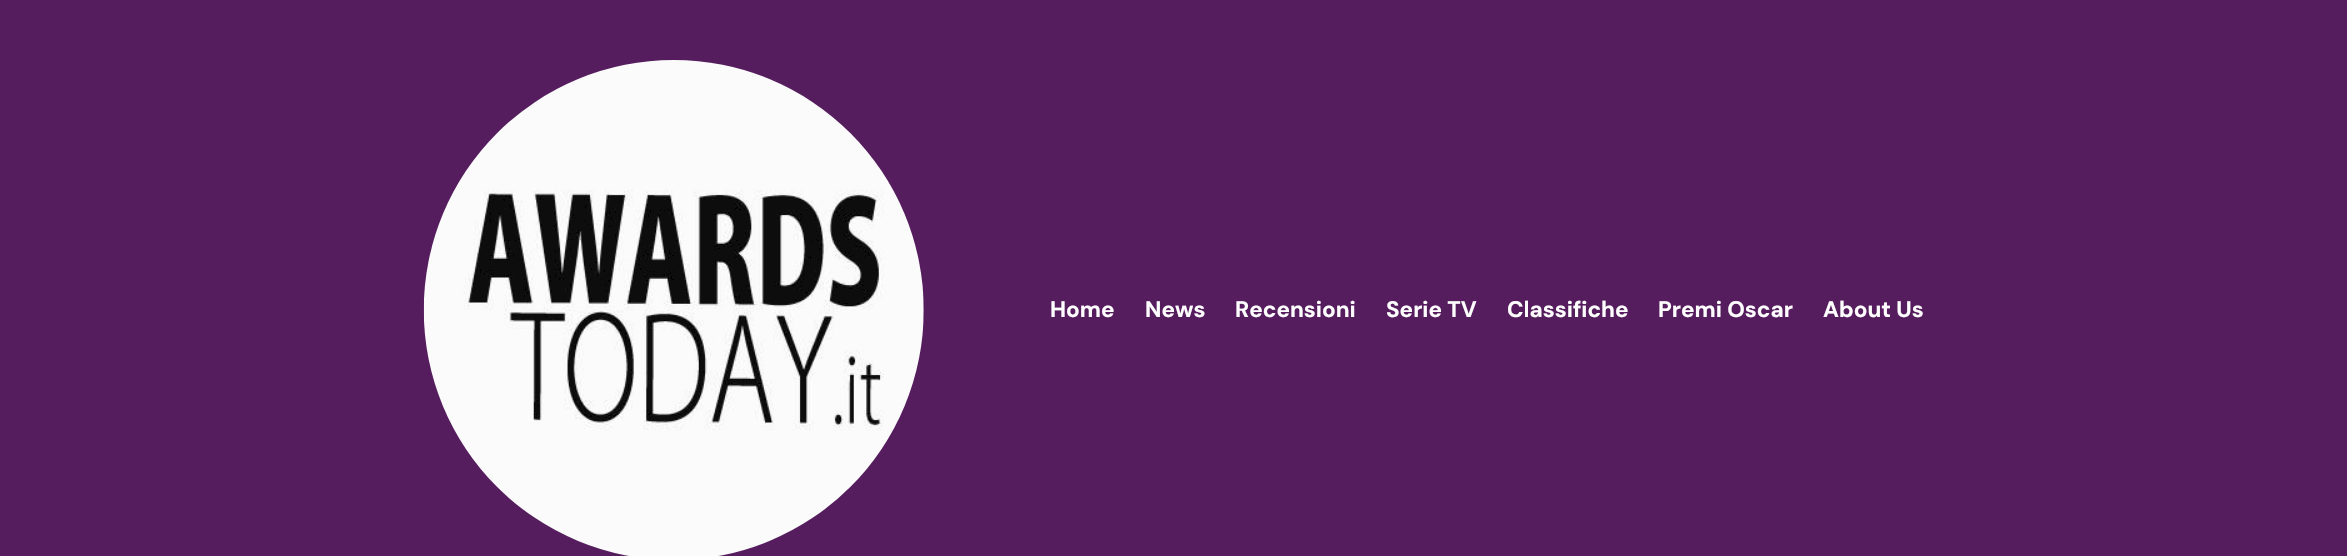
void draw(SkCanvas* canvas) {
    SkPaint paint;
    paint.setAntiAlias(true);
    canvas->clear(0xFF551C5E);
    canvas->drawImageRect(SkImages::DeferredFromEncodedData(SkData::MakeFromFileName("img1.png")), SkRect::MakeXYWH(423, 60, 501, 496), SkSamplingOptions());
    SkFont font1(fontMgr->matchFamilyStyle("DM Sans", SkFontStyle::Bold()), 22.5f);
    font1.setSubpixel(true);
    paint.setColor(0xFFFFFFFF);
    canvas->drawString("Home", 1050, 317, font1, paint);
    canvas->drawString("News", 1145, 317, font1, paint);
    canvas->drawString("Recensioni", 1235, 317, font1, paint);
    canvas->drawString("Serie TV", 1386, 317, font1, paint);
    canvas->drawString("Classifiche", 1507, 317, font1, paint);
    canvas->drawString("Premi Oscar", 1658, 317, font1, paint);
    canvas->drawString("About Us", 1823, 317, font1, paint);
}
